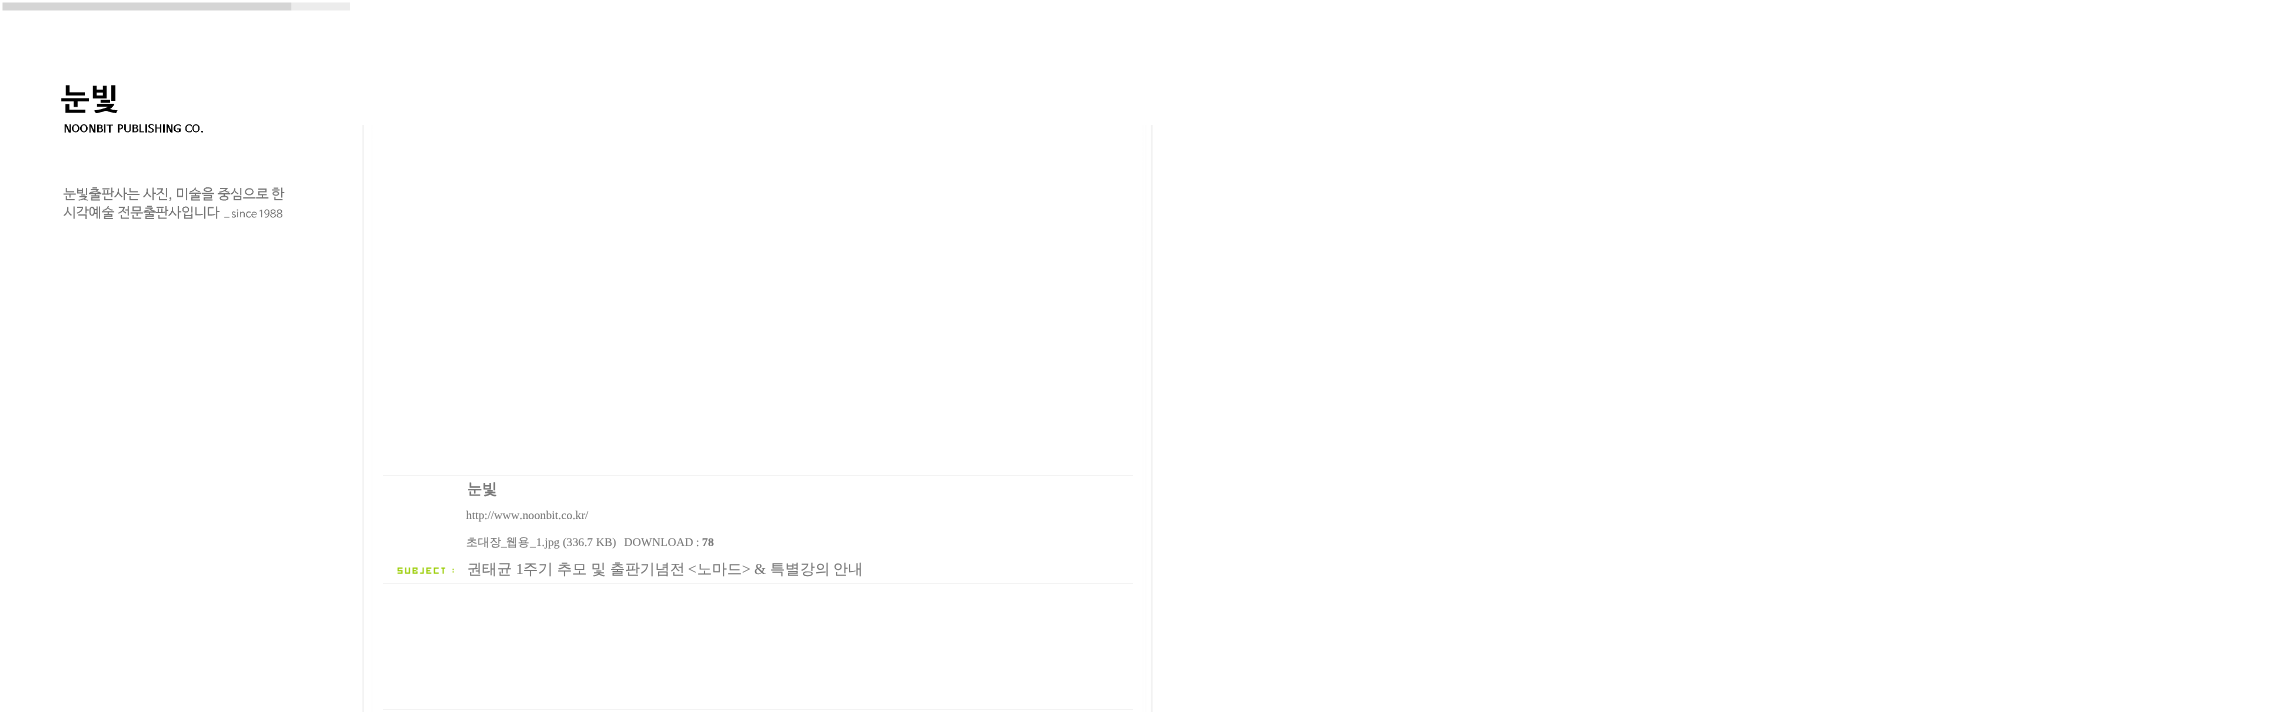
void draw(SkCanvas* canvas) {
    SkPaint paint;
    paint.setAntiAlias(true);
    canvas->clear(0xFFFFFFFF);
    canvas->drawImageRect(SkImages::DeferredFromEncodedData(SkData::MakeFromFileName("img1.png")), SkRect::MakeXYWH(2, 2, 348, 217), SkSamplingOptions());
    canvas->drawImageRect(SkImages::DeferredFromEncodedData(SkData::MakeFromFileName("img2.png")), SkRect::MakeXYWH(362, 125, 791, 587), SkSamplingOptions());
    paint.setColor(0xFFF3F3F3);
    canvas->drawRect(SkRect::MakeXYWH(383, 475, 750, 1), paint);
    SkFont font1(fontMgr->matchFamilyStyle("WenQuanYi Zen Hei", SkFontStyle::Bold()), 15);
    font1.setSubpixel(true);
    paint.setColor(0xFF777777);
    canvas->drawString("눈빛", 467, 494, font1, paint);
    SkFont font2(fontMgr->matchFamilyStyle("Liberation Serif", SkFontStyle::Normal()), 11.75f);
    font2.setSubpixel(true);
    canvas->drawString("http://www.noonbit.co.kr/", 466, 519, font2, paint);
    SkFont font3(fontMgr->matchFamilyStyle("WenQuanYi Zen Hei", SkFontStyle(500, SkFontStyle::kNormal_Width, SkFontStyle::kUpright_Slant)), 11.75f);
    font3.setSubpixel(true);
    canvas->drawString("초대장", 466, 546, font3, paint);
    canvas->drawString("_", 501, 546, font2, paint);
    canvas->drawString("웹용", 506, 546, font3, paint);
    canvas->drawString("_1.jpg (336.7 KB)", 530, 546, font2, paint);
    canvas->drawString("DOWNLOAD :", 624, 546, font2, paint);
    SkFont font4(fontMgr->matchFamilyStyle("Liberation Serif", SkFontStyle::Bold()), 11.75f);
    font4.setSubpixel(true);
    canvas->drawString("78", 702, 546, font4, paint);
    canvas->drawImageRect(SkImages::DeferredFromEncodedData(SkData::MakeFromFileName("img3.png")), SkRect::MakeXYWH(397, 567, 57, 7), SkSamplingOptions());
    SkFont font5(fontMgr->matchFamilyStyle("WenQuanYi Zen Hei", SkFontStyle(500, SkFontStyle::kNormal_Width, SkFontStyle::kUpright_Slant)), 15);
    font5.setSubpixel(true);
    canvas->drawString("권태균", 467, 574, font5, paint);
    SkFont font6(fontMgr->matchFamilyStyle("Liberation Serif", SkFontStyle::Normal()), 15);
    font6.setSubpixel(true);
    canvas->drawString("1", 516, 574, font6, paint);
    canvas->drawString("주기", 523, 574, font5, paint);
    canvas->drawString("추모", 557, 574, font5, paint);
    canvas->drawString("및", 591, 574, font5, paint);
    canvas->drawString("출판기념전", 610, 574, font5, paint);
    canvas->drawString("<", 688, 574, font6, paint);
    canvas->drawString("노마드", 697, 574, font5, paint);
    canvas->drawString("> &", 742, 574, font6, paint);
    canvas->drawString("특별강의", 770, 574, font5, paint);
    canvas->drawString("안내", 833, 574, font5, paint);
    paint.setColor(0xFFF3F3F3);
    canvas->drawRect(SkRect::MakeXYWH(383, 583, 750, 1), paint);
    canvas->drawRect(SkRect::MakeXYWH(383, 709, 750, 1), paint);
}
